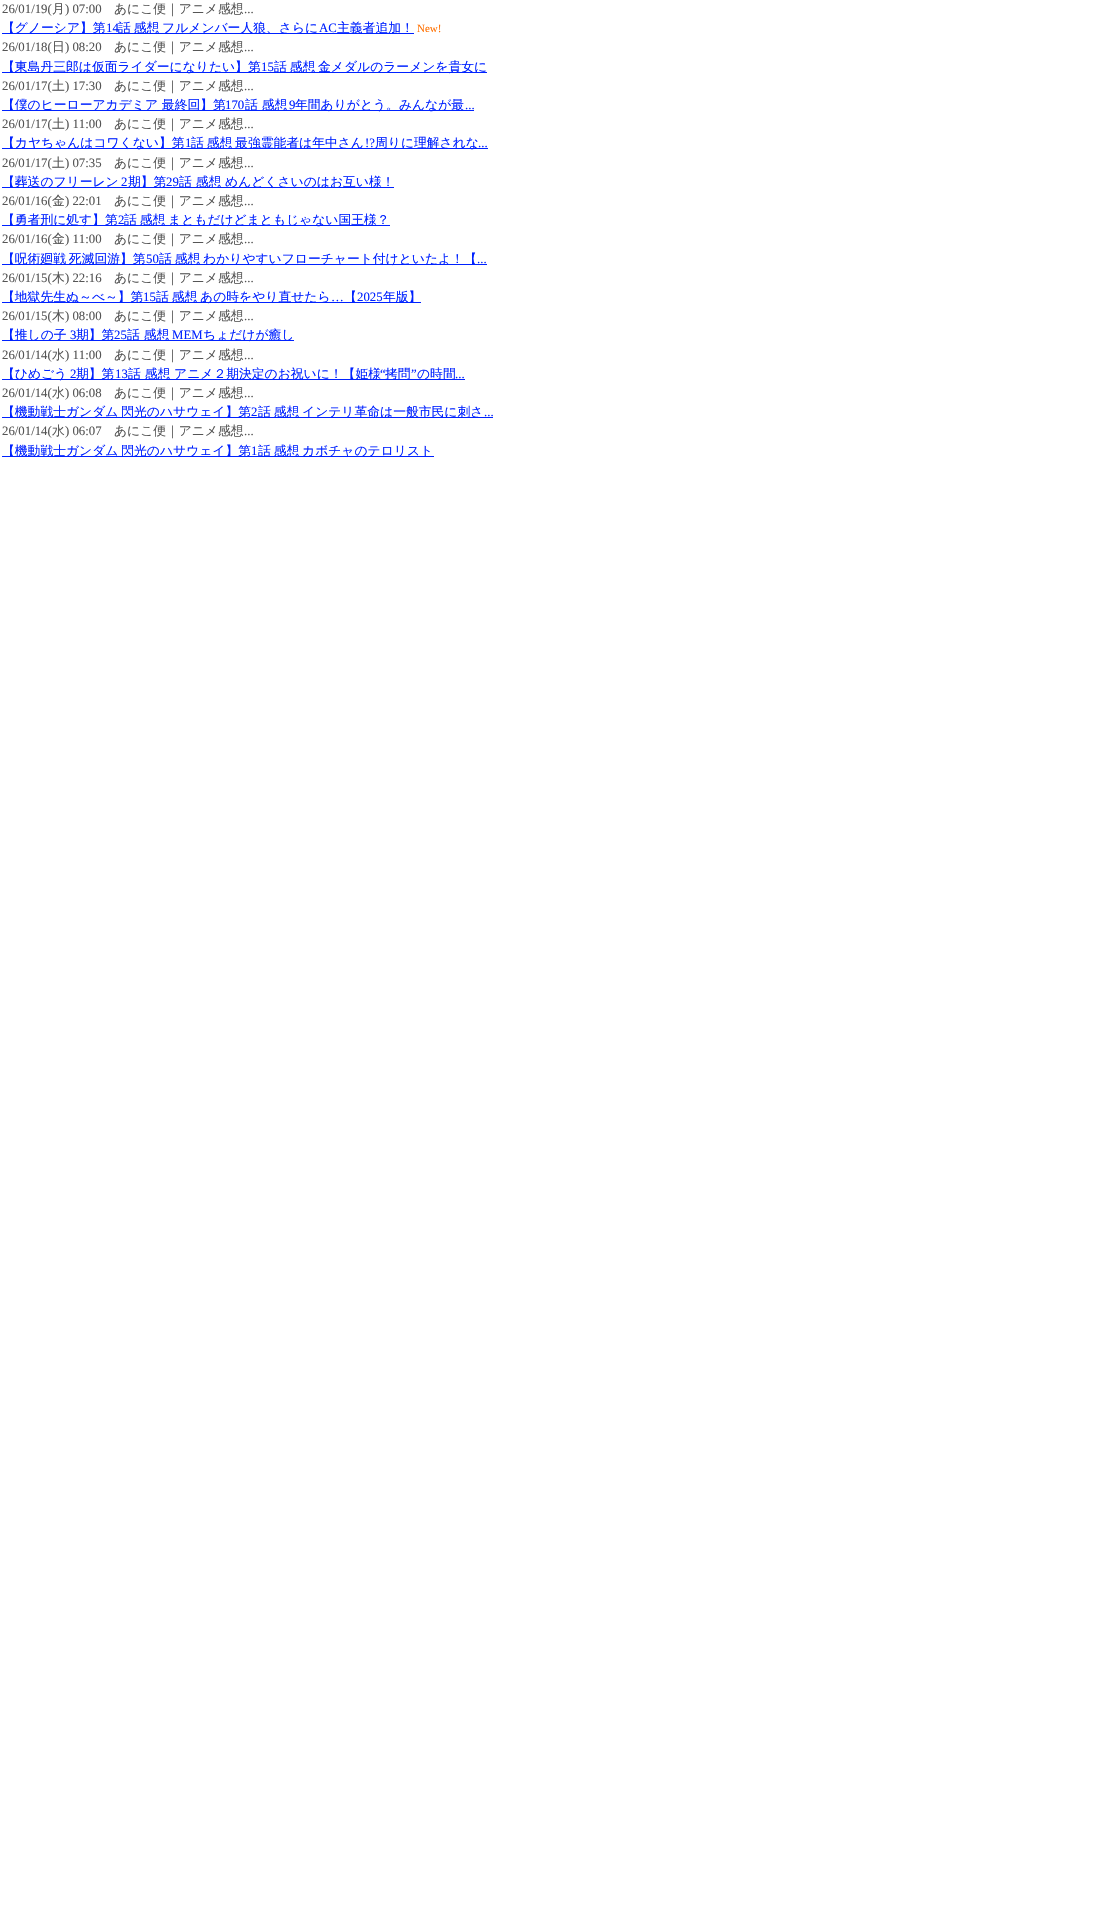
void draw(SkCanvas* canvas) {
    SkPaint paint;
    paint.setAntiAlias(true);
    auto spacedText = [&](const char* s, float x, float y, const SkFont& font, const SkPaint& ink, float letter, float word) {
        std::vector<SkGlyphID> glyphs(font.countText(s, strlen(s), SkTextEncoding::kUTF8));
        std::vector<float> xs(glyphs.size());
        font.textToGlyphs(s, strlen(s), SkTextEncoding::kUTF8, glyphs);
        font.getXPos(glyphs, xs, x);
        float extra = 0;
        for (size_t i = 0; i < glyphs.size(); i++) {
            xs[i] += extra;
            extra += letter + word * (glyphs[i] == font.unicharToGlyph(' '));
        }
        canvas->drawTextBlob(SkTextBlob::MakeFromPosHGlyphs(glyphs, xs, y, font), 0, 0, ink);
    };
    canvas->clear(0xFFFFFFFF);
    SkFont font1(fontMgr->matchFamilyStyle("Liberation Serif", SkFontStyle::Normal()), 12.8f);
    font1.setSubpixel(true);
    paint.setColor(0xFF555555);
    canvas->drawString("26/01/19(", 2, 13, font1, paint);
    SkFont font2(fontMgr->matchFamilyStyle("WenQuanYi Zen Hei", SkFontStyle(500, SkFontStyle::kNormal_Width, SkFontStyle::kUpright_Slant)), 12.8f);
    font2.setSubpixel(true);
    canvas->drawString("月", 52, 13, font2, paint);
    canvas->drawString(") 07:00", 65, 13, font1, paint);
    canvas->drawString("あにこ便｜アニメ感想", 114, 13, font2, paint);
    canvas->drawString("...", 244, 13, font1, paint);
    paint.setColor(0xFF0022FF);
    canvas->drawRect(SkRect::MakeXYWH(2, 33, 412, 1), paint);
    canvas->drawString("【グノーシア】第", 2, 32, font2, paint);
    canvas->drawString("14", 106, 32, font1, paint);
    spacedText("話 感想 フルメンバー人狼、さらに", 118, 32, font2, paint, 0, -1);
    canvas->drawString("AC", 319, 32, font1, paint);
    canvas->drawString("主義者追加！", 337, 32, font2, paint);
    SkFont font3(fontMgr->matchFamilyStyle("Liberation Serif", SkFontStyle::Normal()), 11);
    font3.setSubpixel(true);
    paint.setColor(0xFFFF7000);
    canvas->drawString("New!", 417, 32, font3, paint);
    paint.setColor(0xFF555555);
    canvas->drawString("26/01/18(", 2, 51, font1, paint);
    canvas->drawString("日", 52, 51, font2, paint);
    canvas->drawString(") 08:20", 65, 51, font1, paint);
    canvas->drawString("あにこ便｜アニメ感想", 114, 51, font2, paint);
    canvas->drawString("...", 244, 51, font1, paint);
    paint.setColor(0xFF0022FF);
    canvas->drawRect(SkRect::MakeXYWH(2, 72, 485, 1), paint);
    canvas->drawString("【東島丹三郎は仮面ライダーになりたい】第", 2, 71, font2, paint);
    canvas->drawString("15", 261, 71, font1, paint);
    spacedText("話 感想 金メダルのラーメンを貴女に", 274, 71, font2, paint, 0, -1);
    paint.setColor(0xFF555555);
    canvas->drawString("26/01/17(", 2, 90, font1, paint);
    canvas->drawString("土", 52, 90, font2, paint);
    canvas->drawString(") 17:30", 65, 90, font1, paint);
    canvas->drawString("あにこ便｜アニメ感想", 114, 90, font2, paint);
    canvas->drawString("...", 244, 90, font1, paint);
    paint.setColor(0xFF0022FF);
    canvas->drawRect(SkRect::MakeXYWH(2, 110, 472, 1), paint);
    canvas->drawString("【僕のヒーローアカデミア 最終回】第", 2, 109, font2, paint);
    canvas->drawString("170", 225, 109, font1, paint);
    canvas->drawString("話 感想", 245, 109, font2, paint);
    canvas->drawString("9", 289, 109, font1, paint);
    canvas->drawString("年間ありがとう。みんなが最", 295, 109, font2, paint);
    canvas->drawString("...", 465, 109, font1, paint);
    paint.setColor(0xFF555555);
    canvas->drawString("26/01/17(", 2, 128, font1, paint);
    canvas->drawString("土", 52, 128, font2, paint);
    canvas->drawString(") 11:00", 65, 128, font1, paint);
    canvas->drawString("あにこ便｜アニメ感想", 114, 128, font2, paint);
    canvas->drawString("...", 244, 128, font1, paint);
    paint.setColor(0xFF0022FF);
    canvas->drawRect(SkRect::MakeXYWH(2, 148, 486, 1), paint);
    canvas->drawString("【カヤちゃんはコワくない】第", 2, 147, font2, paint);
    canvas->drawString("1", 185, 147, font1, paint);
    spacedText("話 感想 最強霊能者は年中さん", 191, 147, font2, paint, 0, -1);
    canvas->drawString("!?", 365, 147, font1, paint);
    canvas->drawString("周りに理解されな", 375, 147, font2, paint);
    canvas->drawString("...", 478, 147, font1, paint);
    paint.setColor(0xFF555555);
    canvas->drawString("26/01/17(", 2, 167, font1, paint);
    canvas->drawString("土", 52, 167, font2, paint);
    canvas->drawString(") 07:35", 65, 167, font1, paint);
    canvas->drawString("あにこ便｜アニメ感想", 114, 167, font2, paint);
    canvas->drawString("...", 244, 167, font1, paint);
    paint.setColor(0xFF0022FF);
    canvas->drawRect(SkRect::MakeXYWH(2, 187, 392, 1), paint);
    canvas->drawString("【葬送のフリーレン", 2, 186, font2, paint);
    canvas->drawString("2", 121, 186, font1, paint);
    canvas->drawString("期】第", 128, 186, font2, paint);
    canvas->drawString("29", 166, 186, font1, paint);
    canvas->drawString("話 感想 めんどくさいのはお互い様！", 179, 186, font2, paint);
    paint.setColor(0xFF555555);
    canvas->drawString("26/01/16(", 2, 205, font1, paint);
    canvas->drawString("金", 52, 205, font2, paint);
    canvas->drawString(") 22:01", 65, 205, font1, paint);
    canvas->drawString("あにこ便｜アニメ感想", 114, 205, font2, paint);
    canvas->drawString("...", 244, 205, font1, paint);
    paint.setColor(0xFF0022FF);
    canvas->drawRect(SkRect::MakeXYWH(2, 225, 388, 1), paint);
    canvas->drawString("【勇者刑に処す】第", 2, 224, font2, paint);
    canvas->drawString("2", 118, 224, font1, paint);
    spacedText("話 感想 まともだけどまともじゃない国王様？", 124, 224, font2, paint, 0, -1);
    paint.setColor(0xFF555555);
    canvas->drawString("26/01/16(", 2, 243, font1, paint);
    canvas->drawString("金", 52, 243, font2, paint);
    canvas->drawString(") 11:00", 65, 243, font1, paint);
    canvas->drawString("あにこ便｜アニメ感想", 114, 243, font2, paint);
    canvas->drawString("...", 244, 243, font1, paint);
    paint.setColor(0xFF0022FF);
    canvas->drawRect(SkRect::MakeXYWH(2, 264, 485, 1), paint);
    spacedText("【呪術廻戦 死滅回游】第", 2, 263, font2, paint, 0, -1);
    canvas->drawString("50", 146, 263, font1, paint);
    spacedText("話 感想 わかりやすいフローチャート付けといたよ！【", 159, 263, font2, paint, 0, -1);
    canvas->drawString("...", 477, 263, font1, paint);
    paint.setColor(0xFF555555);
    canvas->drawString("26/01/15(", 2, 282, font1, paint);
    canvas->drawString("木", 52, 282, font2, paint);
    canvas->drawString(") 22:16", 65, 282, font1, paint);
    canvas->drawString("あにこ便｜アニメ感想", 114, 282, font2, paint);
    canvas->drawString("...", 244, 282, font1, paint);
    paint.setColor(0xFF0022FF);
    canvas->drawRect(SkRect::MakeXYWH(2, 302, 419, 1), paint);
    canvas->drawString("【地獄先生ぬ～べ～】第", 2, 301, font2, paint);
    canvas->drawString("15", 143, 301, font1, paint);
    spacedText("話 感想 あの時をやり直せたら", 156, 301, font2, paint, 0, -1);
    canvas->drawString("…", 331, 301, font1, paint);
    canvas->drawString("【", 344, 301, font2, paint);
    canvas->drawString("2025", 357, 301, font1, paint);
    canvas->drawString("年版】", 383, 301, font2, paint);
    paint.setColor(0xFF555555);
    canvas->drawString("26/01/15(", 2, 320, font1, paint);
    canvas->drawString("木", 52, 320, font2, paint);
    canvas->drawString(") 08:00", 65, 320, font1, paint);
    canvas->drawString("あにこ便｜アニメ感想", 114, 320, font2, paint);
    canvas->drawString("...", 244, 320, font1, paint);
    paint.setColor(0xFF0022FF);
    canvas->drawRect(SkRect::MakeXYWH(2, 340, 292, 1), paint);
    canvas->drawString("【推しの子", 2, 339, font2, paint);
    canvas->drawString("3", 70, 339, font1, paint);
    canvas->drawString("期】第", 76, 339, font2, paint);
    canvas->drawString("25", 114, 339, font1, paint);
    canvas->drawString("話 感想", 127, 339, font2, paint);
    canvas->drawString("MEM", 172, 339, font1, paint);
    canvas->drawString("ちょだけが癒し", 203, 339, font2, paint);
    paint.setColor(0xFF555555);
    canvas->drawString("26/01/14(", 2, 359, font1, paint);
    canvas->drawString("水", 52, 359, font2, paint);
    canvas->drawString(") 11:00", 65, 359, font1, paint);
    canvas->drawString("あにこ便｜アニメ感想", 114, 359, font2, paint);
    canvas->drawString("...", 244, 359, font1, paint);
    paint.setColor(0xFF0022FF);
    canvas->drawRect(SkRect::MakeXYWH(2, 379, 463, 1), paint);
    canvas->drawString("【ひめごう", 2, 378, font2, paint);
    canvas->drawString("2", 70, 378, font1, paint);
    canvas->drawString("期】第", 76, 378, font2, paint);
    canvas->drawString("13", 115, 378, font1, paint);
    canvas->drawString("話 感想 アニメ２期決定のお祝いに！【姫様", 128, 378, font2, paint);
    canvas->drawString("“", 380, 378, font1, paint);
    canvas->drawString("拷問", 385, 378, font2, paint);
    canvas->drawString("”", 411, 378, font1, paint);
    canvas->drawString("の時間", 417, 378, font2, paint);
    canvas->drawString("...", 455, 378, font1, paint);
    paint.setColor(0xFF555555);
    canvas->drawString("26/01/14(", 2, 397, font1, paint);
    canvas->drawString("水", 52, 397, font2, paint);
    canvas->drawString(") 06:08", 65, 397, font1, paint);
    canvas->drawString("あにこ便｜アニメ感想", 114, 397, font2, paint);
    canvas->drawString("...", 244, 397, font1, paint);
    paint.setColor(0xFF0022FF);
    canvas->drawRect(SkRect::MakeXYWH(2, 417, 491, 1), paint);
    spacedText("【機動戦士ガンダム 閃光のハサウェイ】第", 2, 416, font2, paint, 0, -1);
    canvas->drawString("2", 251, 416, font1, paint);
    spacedText("話 感想 インテリ革命は一般市民に刺さ", 258, 416, font2, paint, 0, -1);
    canvas->drawString("...", 484, 416, font1, paint);
    paint.setColor(0xFF555555);
    canvas->drawString("26/01/14(", 2, 435, font1, paint);
    canvas->drawString("水", 52, 435, font2, paint);
    canvas->drawString(") 06:07", 65, 435, font1, paint);
    canvas->drawString("あにこ便｜アニメ感想", 114, 435, font2, paint);
    canvas->drawString("...", 244, 435, font1, paint);
    paint.setColor(0xFF0022FF);
    canvas->drawRect(SkRect::MakeXYWH(2, 456, 432, 1), paint);
    spacedText("【機動戦士ガンダム 閃光のハサウェイ】第", 2, 455, font2, paint, 0, -1);
    canvas->drawString("1", 251, 455, font1, paint);
    spacedText("話 感想 カボチャのテロリスト", 258, 455, font2, paint, 0, -1);
}
